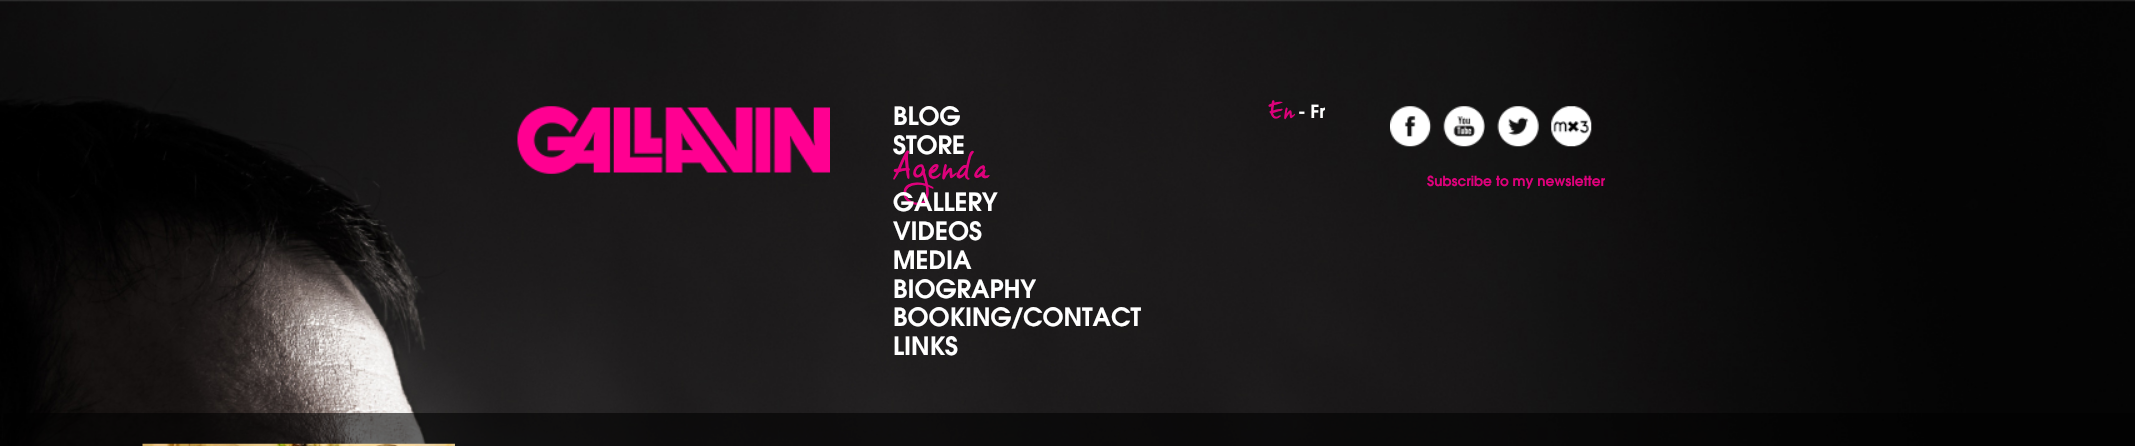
void draw(SkCanvas* canvas) {
    SkPaint paint;
    paint.setAntiAlias(true);
    canvas->clear(0xFFFFFFFF);
    canvas->drawImageRect(SkImages::DeferredFromEncodedData(SkData::MakeFromFileName("img1.png")), SkRect::MakeXYWH(0, 0, 2135, 446), SkSamplingOptions());
    canvas->drawImageRect(SkImages::DeferredFromEncodedData(SkData::MakeFromFileName("img2.png")), SkRect::MakeXYWH(517, 106, 313, 68), SkSamplingOptions());
    SkFont font1(fontMgr->matchFamilyStyle("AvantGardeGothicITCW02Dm", SkFontStyle::Normal()), 25);
    font1.setSubpixel(true);
    paint.setColor(0xFFFFFFFF);
    canvas->drawString("BLOG", 893, 125, font1, paint);
    canvas->drawString("STORE", 893, 154, font1, paint);
    SkFont font2(fontMgr->matchFamilyStyle("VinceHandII", SkFontStyle::Normal()), 37.5f);
    font2.setSubpixel(true);
    paint.setColor(0xFFDE007B);
    canvas->drawString("Agenda", 893, 178, font2, paint);
    paint.setColor(0xFFFFFFFF);
    canvas->drawString("GALLERY", 893, 211, font1, paint);
    canvas->drawString("VIDEOS", 893, 240, font1, paint);
    canvas->drawString("MEDIA", 893, 269, font1, paint);
    canvas->drawString("BIOGRAPHY", 893, 298, font1, paint);
    canvas->drawString("BOOKING/CONTACT", 893, 326, font1, paint);
    canvas->drawString("LINKS", 893, 355, font1, paint);
    SkFont font3(fontMgr->matchFamilyStyle("VinceHandII", SkFontStyle::Normal()), 28);
    font3.setSubpixel(true);
    paint.setColor(0xFFDE007B);
    canvas->drawString("En", 1268, 118, font3, paint);
    SkFont font4(fontMgr->matchFamilyStyle("AvantGardeGothicITCW02Dm", SkFontStyle::Normal()), 18);
    font4.setSubpixel(true);
    paint.setColor(0xFFFFFFFF);
    canvas->drawString("- Fr", 1298, 118, font4, paint);
    canvas->drawImageRect(SkImages::DeferredFromEncodedData(SkData::MakeFromFileName("img3.png")), SkRect::MakeXYWH(1390, 106, 42, 41), SkSamplingOptions());
    canvas->drawImageRect(SkImages::DeferredFromEncodedData(SkData::MakeFromFileName("img4.png")), SkRect::MakeXYWH(1443, 106, 42, 41), SkSamplingOptions());
    canvas->drawImageRect(SkImages::DeferredFromEncodedData(SkData::MakeFromFileName("img5.png")), SkRect::MakeXYWH(1497, 106, 42, 41), SkSamplingOptions());
    canvas->drawImageRect(SkImages::DeferredFromEncodedData(SkData::MakeFromFileName("img6.png")), SkRect::MakeXYWH(1551, 106, 41, 41), SkSamplingOptions());
    SkFont font5(fontMgr->matchFamilyStyle("AvantGardeGothicITCW02Dm", SkFontStyle::Normal()), 13.75f);
    font5.setSubpixel(true);
    paint.setColor(0xFFDE007B);
    canvas->drawString("Subscribe to my newsletter", 1427, 186, font5, paint);
    paint.setColor(0x99000000);
    canvas->drawRect(SkRect::MakeXYWH(3, 413, 2132, 33), paint);
    canvas->drawImageRect(SkImages::DeferredFromEncodedData(SkData::MakeFromFileName("img7.png")), SkRect::MakeXYWH(142, 443, 313, 3), SkSamplingOptions());
}
